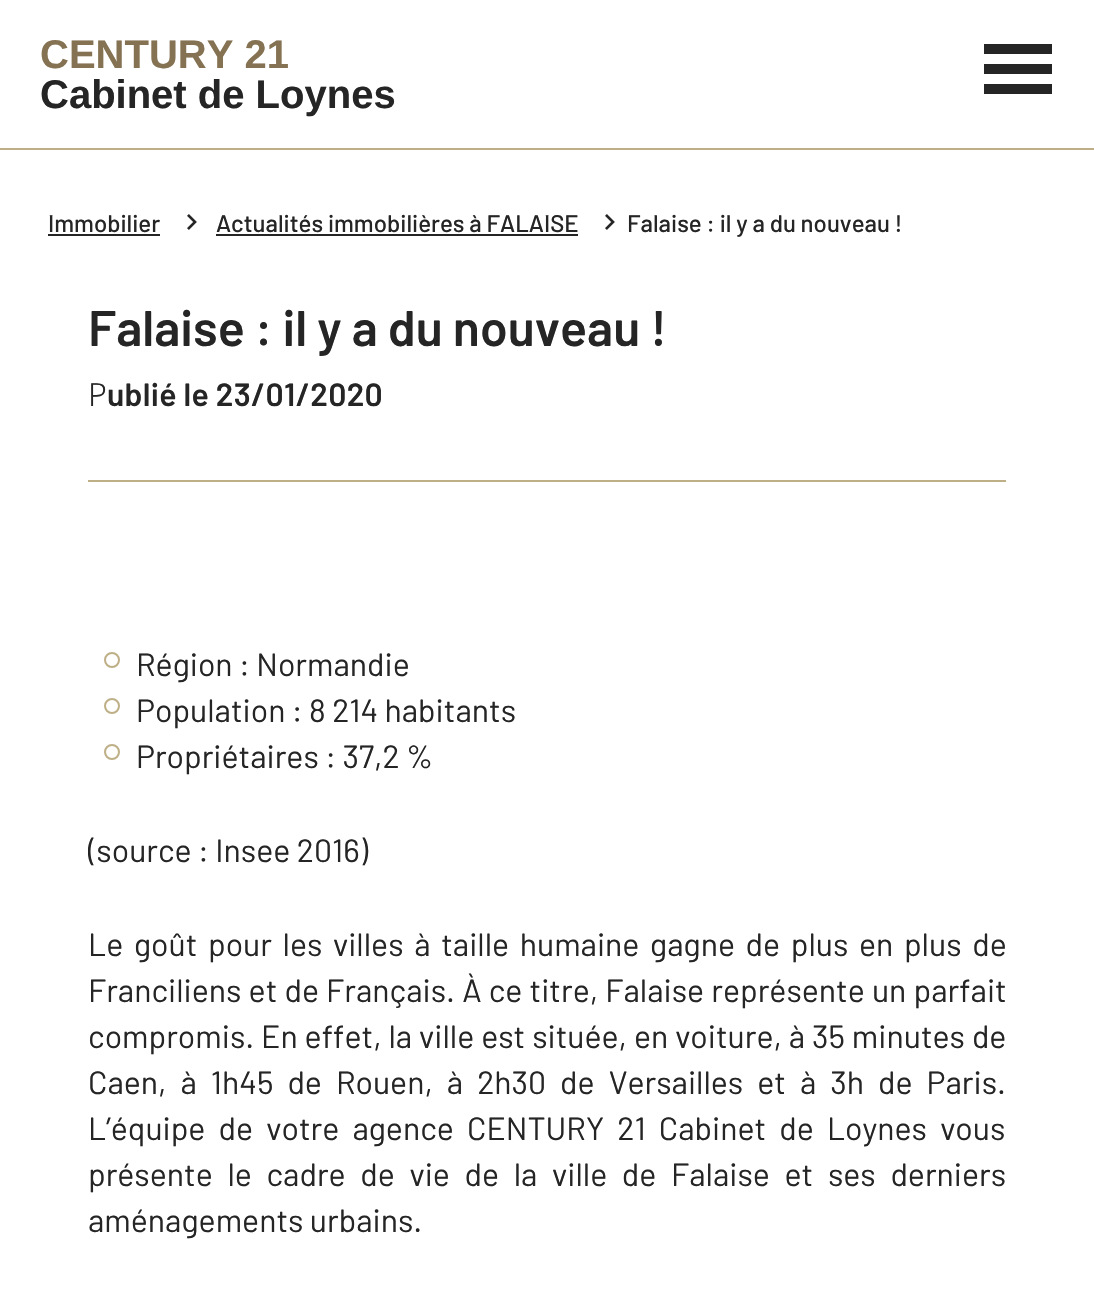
void draw(SkCanvas* canvas) {
    SkPaint paint;
    paint.setAntiAlias(true);
    auto spacedText = [&](const char* s, float x, float y, const SkFont& font, const SkPaint& ink, float letter, float word) {
        std::vector<SkGlyphID> glyphs(font.countText(s, strlen(s), SkTextEncoding::kUTF8));
        std::vector<float> xs(glyphs.size());
        font.textToGlyphs(s, strlen(s), SkTextEncoding::kUTF8, glyphs);
        font.getXPos(glyphs, xs, x);
        float extra = 0;
        for (size_t i = 0; i < glyphs.size(); i++) {
            xs[i] += extra;
            extra += letter + word * (glyphs[i] == font.unicharToGlyph(' '));
        }
        canvas->drawTextBlob(SkTextBlob::MakeFromPosHGlyphs(glyphs, xs, y, font), 0, 0, ink);
    };
    canvas->clear(0xFFFFFFFF);
    paint.setColor(0xFFBEAF87);
    canvas->drawRect(SkRect::MakeXYWH(0, 148, 1094, 2), paint);
    SkFont font1(fontMgr->matchFamilyStyle("Liberation Sans", SkFontStyle::Bold()), 40);
    font1.setSubpixel(true);
    paint.setColor(0xFF847252);
    canvas->drawString("CENTURY 21", 40, 68, font1, paint);
    paint.setColor(0xFF252526);
    canvas->drawString("Cabinet de Loynes", 40, 108, font1, paint);
    canvas->drawRect(SkRect::MakeXYWH(984, 84, 68, 10), paint);
    canvas->drawRect(SkRect::MakeXYWH(984, 44, 68, 10), paint);
    canvas->drawRect(SkRect::MakeXYWH(984, 64, 68, 10), paint);
    SkFont font2(fontMgr->matchFamilyStyle("Barlow", SkFontStyle(500, SkFontStyle::kNormal_Width, SkFontStyle::kUpright_Slant)), 24);
    font2.setSubpixel(true);
    canvas->drawString("Immobilier", 48, 232, font2, paint);
    canvas->drawRect(SkRect::MakeXYWH(48, 234, 112, 2), paint);
    canvas->drawImageRect(SkImages::DeferredFromEncodedData(SkData::MakeFromFileName("img1.png")), SkRect::MakeXYWH(187, 214, 10, 16), SkSamplingOptions());
    canvas->drawString("Actualités immobilières à FALAISE", 216, 232, font2, paint);
    canvas->drawRect(SkRect::MakeXYWH(216, 234, 362, 2), paint);
    canvas->drawImageRect(SkImages::DeferredFromEncodedData(SkData::MakeFromFileName("img1.png")), SkRect::MakeXYWH(605, 214, 10, 16), SkSamplingOptions());
    canvas->drawString("Falaise : il y a du nouveau !", 627, 232, font2, paint);
    SkFont font3(fontMgr->matchFamilyStyle("Barlow", SkFontStyle(600, SkFontStyle::kNormal_Width, SkFontStyle::kUpright_Slant)), 50);
    font3.setSubpixel(true);
    canvas->drawString("Falaise : il y a du nouveau !", 88, 346, font3, paint);
    SkFont font4(fontMgr->matchFamilyStyle("Noto Sans", SkFontStyle(300, SkFontStyle::kNormal_Width, SkFontStyle::kUpright_Slant)), 32);
    font4.setSubpixel(true);
    spacedText("P", 88, 406, font4, paint, 0.3f, 0);
    SkFont font5(fontMgr->matchFamilyStyle("Barlow", SkFontStyle(600, SkFontStyle::kNormal_Width, SkFontStyle::kUpright_Slant)), 32);
    font5.setSubpixel(true);
    spacedText("ublié le 23/01/2020", 107, 406, font5, paint, 0.3f, 0);
    paint.setColor(0xFFBEAF87);
    canvas->drawRect(SkRect::MakeXYWH(88, 480, 918, 2), paint);
    paint.setStyle(SkPaint::kStroke_Style);
    paint.setStrokeWidth(2);
    canvas->drawCircle(112, 660, 7, paint);
    SkFont font6(fontMgr->matchFamilyStyle("Barlow", SkFontStyle::Normal()), 32);
    font6.setSubpixel(true);
    paint.setStyle(SkPaint::kFill_Style);
    paint.setColor(0xFF252526);
    canvas->drawString("Région : Normandie", 136, 676, font6, paint);
    paint.setStyle(SkPaint::kStroke_Style);
    paint.setColor(0xFFBEAF87);
    canvas->drawCircle(112, 706, 7, paint);
    paint.setStyle(SkPaint::kFill_Style);
    paint.setColor(0xFF252526);
    canvas->drawString("Population : 8 214 habitants", 136, 722, font6, paint);
    paint.setStyle(SkPaint::kStroke_Style);
    paint.setColor(0xFFBEAF87);
    canvas->drawCircle(112, 752, 7, paint);
    paint.setStyle(SkPaint::kFill_Style);
    paint.setColor(0xFF252526);
    canvas->drawString("Propriétaires : 37,2 %", 136, 768, font6, paint);
    canvas->save();
    canvas->clipRect(SkRect::MakeXYWH(88, 546, 918, 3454));
    canvas->drawString("(source : Insee 2016)", 88, 862, font6, paint);
    canvas->restore();
    spacedText("Le goût pour les villes à taille humaine gagne de plus en plus de", 88, 956, font6, paint, 0, 4.25f);
    spacedText("Franciliens et de Français. À ce titre, Falaise représente un parfait", 88, 1002, font6, paint, 0, 0.75f);
    spacedText("compromis. En effet, la ville est située, en voiture, à 35 minutes de", 88, 1048, font6, paint, 0, 0.5f);
    spacedText("Caen, à 1h45 de Rouen, à 2h30 de Versailles et à 3h de Paris.", 88, 1094, font6, paint, 0, 7.6f);
    spacedText("L’équipe de votre agence CENTURY 21 Cabinet de Loynes vous", 88, 1140, font6, paint, 0, 6.75f);
    spacedText("présente le cadre de vie de la ville de Falaise et ses derniers", 88, 1186, font6, paint, 0, 8.25f);
    canvas->drawString("aménagements urbains.", 88, 1232, font6, paint);
}
